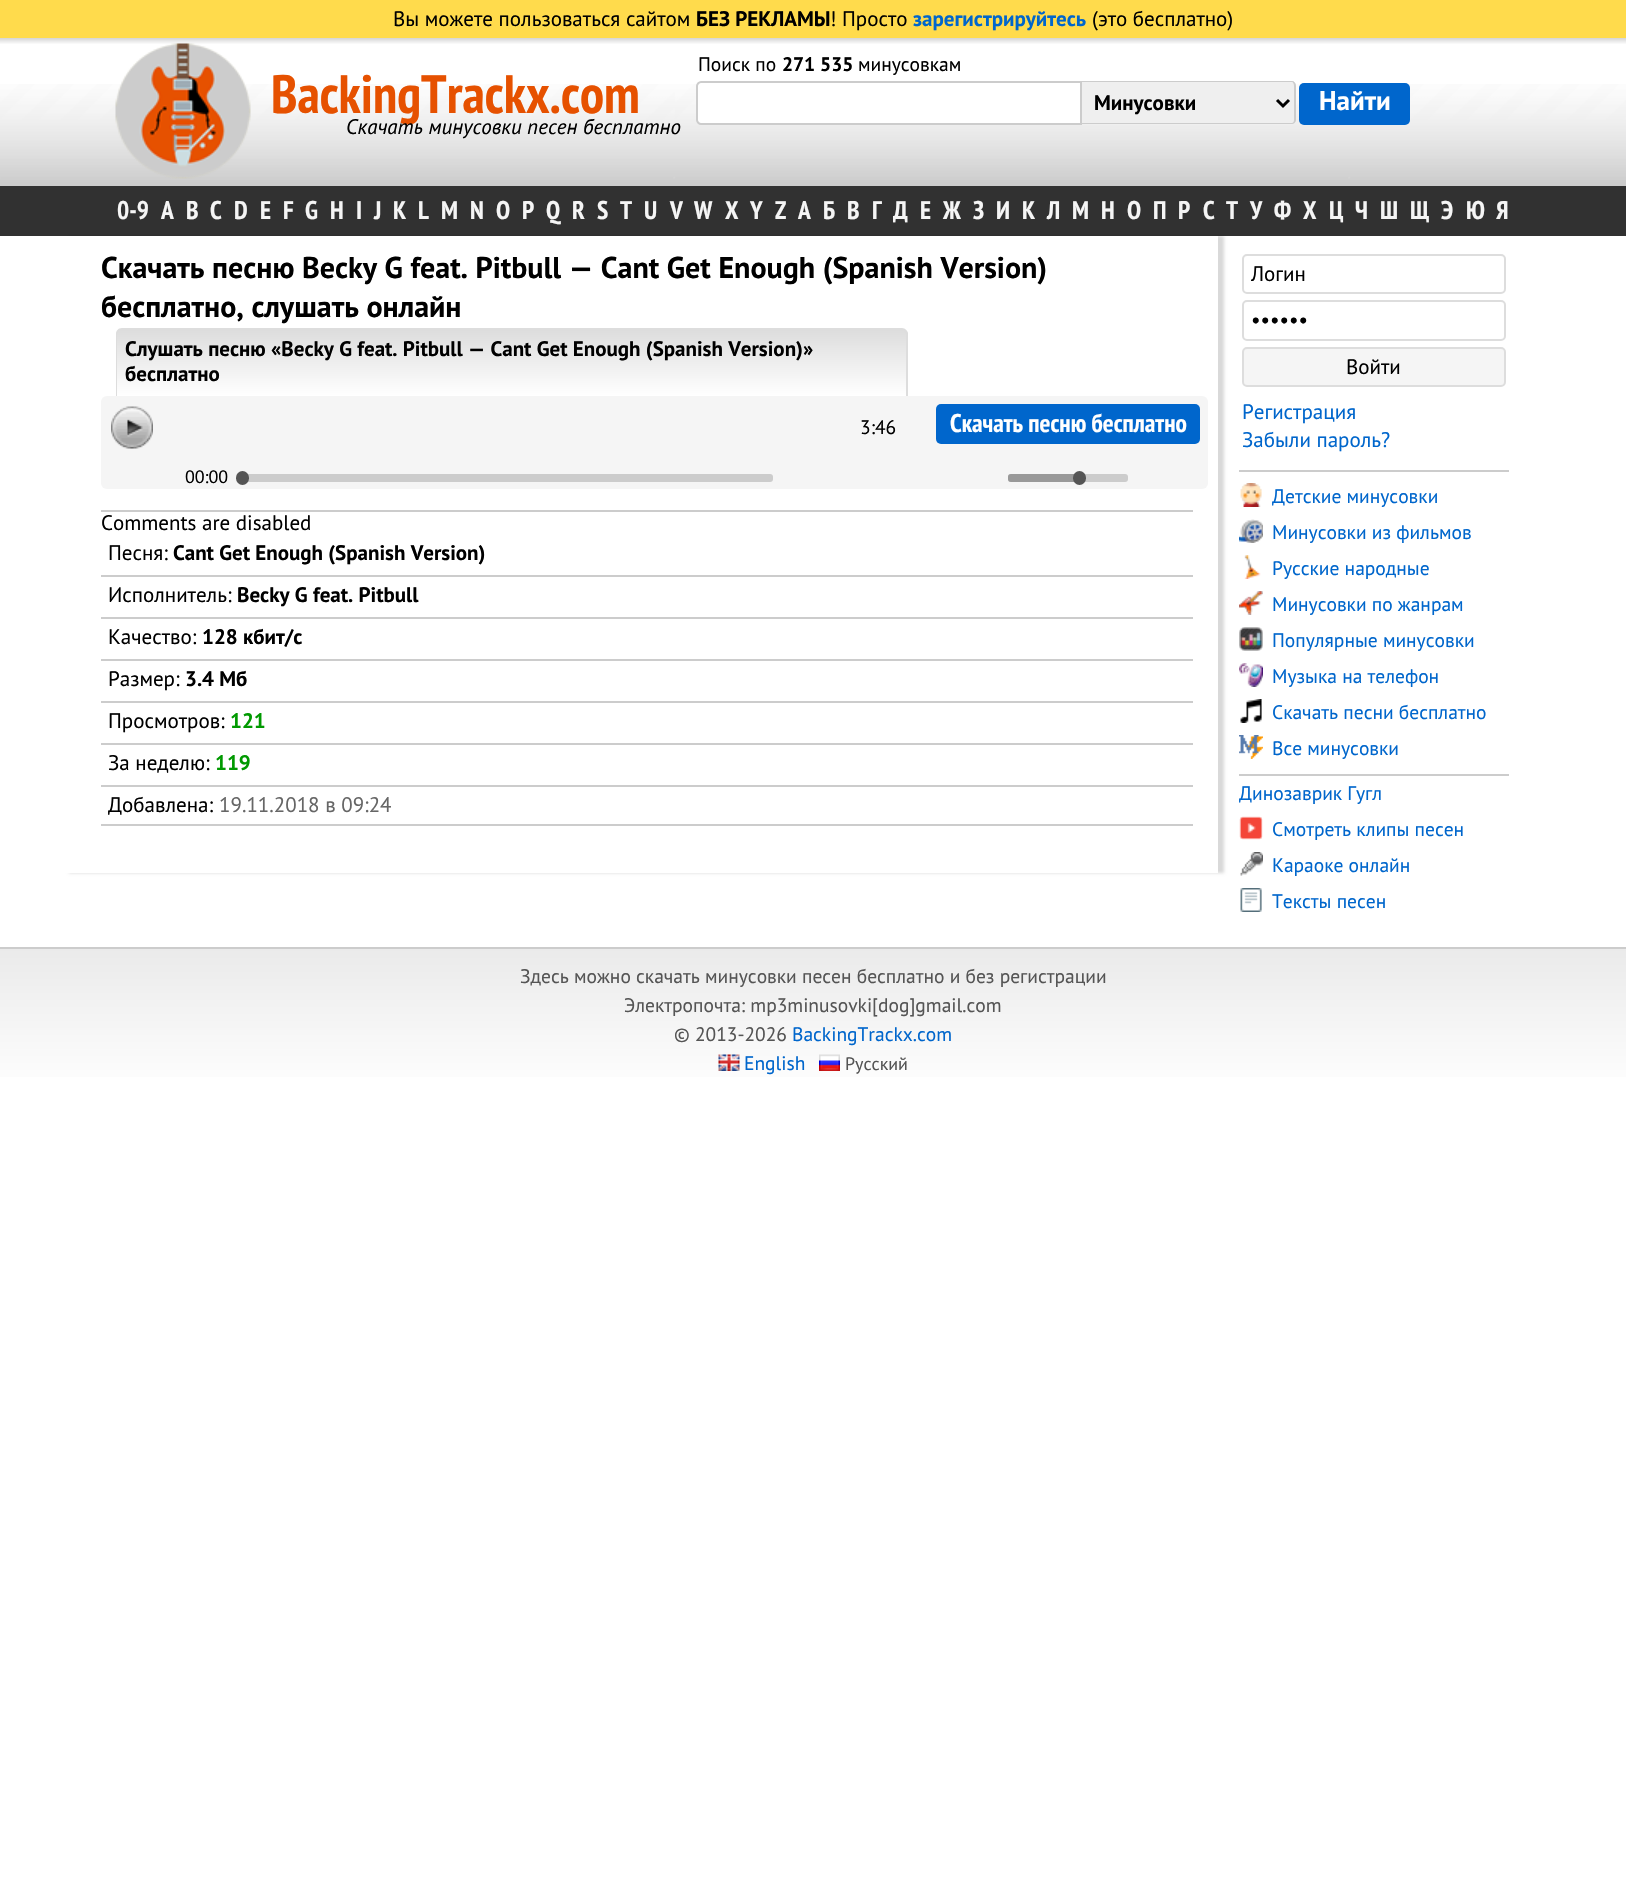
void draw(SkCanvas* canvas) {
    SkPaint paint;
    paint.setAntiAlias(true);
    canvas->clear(0xFFFFFFFF);
    paint.setColor(0xFFFFDB4C);
    canvas->drawRect(SkRect::MakeXYWH(0, 0, 1626, 38), paint);
    SkFont font1(fontMgr->matchFamilyStyle("PT Sans", SkFontStyle::Normal()), 21);
    font1.setSubpixel(true);
    paint.setColor(0xFF000000);
    canvas->drawString("Вы можете пользоваться сайтом", 393, 26, font1, paint);
    SkFont font2(fontMgr->matchFamilyStyle("PT Sans", SkFontStyle::Bold()), 21);
    font2.setSubpixel(true);
    canvas->drawString("БЕЗ РЕКЛАМЫ", 696, 26, font2, paint);
    canvas->drawString("! Просто", 830, 26, font1, paint);
    paint.setColor(0xFF0066CC);
    canvas->drawString("зарегистрируйтесь", 913, 26, font2, paint);
    paint.setColor(0xFF000000);
    canvas->drawString("(это бесплатно)", 1092, 26, font1, paint);
    {
        const SkColor colors[] = {0xFFCECECE, 0xFFFCFCFC};
        const float stops[] = {0, 1};
        const SkPoint ends[] = {{813, 37}, {813, 44}};
        paint.setShader(SkGradientShader::MakeLinear(ends, colors, stops, 2, SkTileMode::kClamp));
        paint.setAlpha(255);
    }
    canvas->drawRect(SkRect::MakeXYWH(0, 38, 1626, 6), paint);
    canvas->drawImageRect(SkImages::DeferredFromEncodedData(SkData::MakeFromFileName("img1.png")), SkRect::MakeXYWH(0, 84, 1626, 102), SkSamplingOptions());
    canvas->drawImageRect(SkImages::DeferredFromEncodedData(SkData::MakeFromFileName("img2.png")), SkRect::MakeXYWH(115, 43, 136, 136), SkSamplingOptions());
    SkFont font3(fontMgr->matchFamilyStyle("PT Sans Narrow", SkFontStyle::Bold()), 54);
    font3.setSubpixel(true);
    paint.setShader(nullptr);
    paint.setColor(0xFFE65100);
    canvas->drawString("BackingTrackx.com", 271, 113, font3, paint);
    SkFont font4(fontMgr->matchFamilyStyle("PT Sans", SkFontStyle::Italic()), 21);
    font4.setSubpixel(true);
    paint.setColor(0xFF000000);
    canvas->drawString("Скачать минусовки песен бесплатно", 346, 134, font4, paint);
    SkFont font5(fontMgr->matchFamilyStyle("PT Sans", SkFontStyle::Normal()), 19.5f);
    font5.setSubpixel(true);
    canvas->drawString("Поиск по", 698, 71, font5, paint);
    SkFont font6(fontMgr->matchFamilyStyle("PT Sans", SkFontStyle::Bold()), 19.5f);
    font6.setSubpixel(true);
    canvas->drawString("271 535", 782, 71, font6, paint);
    canvas->drawString("минусовкам", 858, 71, font5, paint);
    paint.setColor(0xFFFFFFFF);
    canvas->drawPath(SkPathBuilder().moveTo(701, 82).lineTo(1081, 82).lineTo(1081, 124).lineTo(701, 124).cubicTo(699, 124, 697, 122, 697, 120).lineTo(697, 86).cubicTo(697, 84, 699, 82, 701, 82).close().detach(), paint);
    paint.setStyle(SkPaint::kStroke_Style);
    paint.setStrokeWidth(2);
    paint.setColor(0xFFCCCCCC);
    canvas->drawPath(SkPathBuilder().moveTo(701, 82).lineTo(1081, 82).lineTo(1081, 124).lineTo(701, 124).cubicTo(699, 124, 697, 122, 697, 120).lineTo(697, 86).cubicTo(697, 84, 699, 82, 701, 82).close().detach(), paint);
    paint.setStyle(SkPaint::kFill_Style);
    paint.setColor(0xFFEFEFEF);
    canvas->drawPath(SkPathBuilder().moveTo(1082, 81).lineTo(1291, 81).cubicTo(1294, 81, 1296, 83, 1296, 86).lineTo(1296, 120).cubicTo(1296, 123, 1294, 125, 1291, 125).lineTo(1082, 125).close().detach(), paint);
    paint.setColor(0xFFCCCCCC);
    canvas->drawPath(SkPathBuilder(SkPathFillType::kEvenOdd).moveTo(1082, 81).lineTo(1292, 81).cubicTo(1294, 81, 1296, 83, 1296, 86).lineTo(1296, 120).cubicTo(1296, 122, 1294, 124, 1292, 124).lineTo(1082, 124).close().moveTo(1082, 82).lineTo(1292, 82).cubicTo(1293, 82, 1294, 84, 1294, 86).lineTo(1294, 120).cubicTo(1294, 122, 1293, 123, 1292, 123).lineTo(1082, 123).close().detach(), paint);
    paint.setStyle(SkPaint::kStroke_Style);
    paint.setStrokeWidth(3);
    paint.setColor(0xFF000000);
    canvas->drawPath(SkPathBuilder().moveTo(1277, 100).lineTo(1283, 106).lineTo(1289, 100).detach(), paint);
    paint.setStyle(SkPaint::kFill_Style);
    canvas->drawString("Минусовки", 1094, 110, font2, paint);
    paint.setColor(0xFF0066CC);
    canvas->drawRoundRect(SkRect::MakeXYWH(1299, 83, 111, 42), 5, 5, paint);
    SkFont font7(fontMgr->matchFamilyStyle("PT Sans", SkFontStyle::Bold()), 27);
    font7.setSubpixel(true);
    paint.setColor(0xFFFFFFFF);
    canvas->drawString("Найти", 1319, 110, font7, paint);
    paint.setColor(0xFF313131);
    canvas->drawRect(SkRect::MakeXYWH(0, 186, 1626, 50), paint);
    SkFont font8(fontMgr->matchFamilyStyle("PT Sans Narrow", SkFontStyle::Bold()), 25.5f);
    font8.setSubpixel(true);
    paint.setColor(0xFFF5F5F5);
    canvas->drawString("0-9", 117, 219, font8, paint);
    canvas->drawString("A", 161, 219, font8, paint);
    canvas->drawString("B", 186, 219, font8, paint);
    canvas->drawString("C", 210, 219, font8, paint);
    canvas->drawString("D", 234, 219, font8, paint);
    canvas->drawString("E", 260, 219, font8, paint);
    canvas->drawString("F", 283, 219, font8, paint);
    canvas->drawString("G", 305, 219, font8, paint);
    canvas->drawString("H", 330, 219, font8, paint);
    canvas->drawString("I", 356, 219, font8, paint);
    canvas->drawString("J", 374, 219, font8, paint);
    canvas->drawString("K", 393, 219, font8, paint);
    canvas->drawString("L", 418, 219, font8, paint);
    canvas->drawString("M", 441, 219, font8, paint);
    canvas->drawString("N", 470, 219, font8, paint);
    canvas->drawString("O", 496, 219, font8, paint);
    canvas->drawString("P", 522, 219, font8, paint);
    canvas->drawString("Q", 546, 219, font8, paint);
    canvas->drawString("R", 572, 219, font8, paint);
    canvas->drawString("S", 597, 219, font8, paint);
    canvas->drawString("T", 620, 219, font8, paint);
    canvas->drawString("U", 644, 219, font8, paint);
    canvas->drawString("V", 670, 219, font8, paint);
    canvas->drawString("W", 694, 219, font8, paint);
    canvas->drawString("X", 725, 219, font8, paint);
    canvas->drawString("Y", 750, 219, font8, paint);
    canvas->drawString("Z", 775, 219, font8, paint);
    canvas->drawString("А", 798, 219, font8, paint);
    canvas->drawString("Б", 823, 219, font8, paint);
    canvas->drawString("В", 847, 219, font8, paint);
    canvas->drawString("Г", 872, 219, font8, paint);
    canvas->drawString("Д", 893, 219, font8, paint);
    canvas->drawString("Е", 920, 219, font8, paint);
    canvas->drawString("Ж", 943, 219, font8, paint);
    canvas->drawString("З", 973, 219, font8, paint);
    canvas->drawString("И", 996, 219, font8, paint);
    canvas->drawString("К", 1022, 219, font8, paint);
    canvas->drawString("Л", 1047, 219, font8, paint);
    canvas->drawString("М", 1072, 219, font8, paint);
    canvas->drawString("Н", 1101, 219, font8, paint);
    canvas->drawString("О", 1127, 219, font8, paint);
    canvas->drawString("П", 1153, 219, font8, paint);
    canvas->drawString("Р", 1178, 219, font8, paint);
    canvas->drawString("С", 1203, 219, font8, paint);
    canvas->drawString("Т", 1226, 219, font8, paint);
    canvas->drawString("У", 1250, 219, font8, paint);
    canvas->drawString("Ф", 1274, 219, font8, paint);
    canvas->drawString("Х", 1303, 219, font8, paint);
    canvas->drawString("Ц", 1329, 219, font8, paint);
    canvas->drawString("Ч", 1355, 219, font8, paint);
    canvas->drawString("Ш", 1380, 219, font8, paint);
    canvas->drawString("Щ", 1410, 219, font8, paint);
    canvas->drawString("Э", 1441, 219, font8, paint);
    canvas->drawString("Ю", 1466, 219, font8, paint);
    canvas->drawString("Я", 1496, 219, font8, paint);
    canvas->save();
    canvas->clipPath(SkPathBuilder(SkPathFillType::kEvenOdd).moveTo(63, 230).lineTo(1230, 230).lineTo(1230, 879).lineTo(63, 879).close().moveTo(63, 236).lineTo(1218, 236).lineTo(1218, 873).lineTo(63, 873).close().detach(), true);
    paint.setColor(0x26000000);
    paint.setMaskFilter(SkMaskFilter::MakeBlur(kNormal_SkBlurStyle, 1.5f));
    canvas->drawRect(SkRect::MakeXYWH(69, 236, 1155, 637), paint);
    paint.setMaskFilter(nullptr);
    canvas->restore();
    SkFont font9(fontMgr->matchFamilyStyle("PT Sans", SkFontStyle::Bold()), 30);
    font9.setSubpixel(true);
    paint.setColor(0xFF000000);
    canvas->drawString("Скачать песню Becky G feat. Pitbull — Cant Get Enough (Spanish Version)", 101, 278, font9, paint);
    canvas->drawString("бесплатно, слушать онлайн", 101, 317, font9, paint);
    canvas->save();
    canvas->clipPath(SkPathBuilder().moveTo(122, 329).lineTo(902, 329).cubicTo(905.5f, 329, 908, 331.5f, 908, 335).lineTo(908, 396).lineTo(116, 396).lineTo(116, 335).cubicTo(116, 331.5f, 118.5f, 329, 122, 329).close().detach(), true);
    {
        const SkColor colors[] = {0xFFDDDDDD, 0xFFFFFFFF};
        const float stops[] = {0, 1};
        const SkPoint ends[] = {{512, 330}, {512, 396}};
        paint.setShader(SkGradientShader::MakeLinear(ends, colors, stops, 2, SkTileMode::kClamp));
        paint.setAlpha(255);
    }
    canvas->drawRect(SkRect::MakeXYWH(116, 330, 792, 66), paint);
    canvas->restore();
    paint.setShader(nullptr);
    paint.setColor(0xFFDDDDDD);
    canvas->drawPath(SkPathBuilder(SkPathFillType::kEvenOdd).moveTo(122, 328).lineTo(902, 328).cubicTo(905, 328, 908, 331, 908, 334).lineTo(908, 396).lineTo(116, 396).lineTo(116, 334).cubicTo(116, 331, 118, 328, 122, 328).close().moveTo(122, 330).lineTo(902, 330).cubicTo(904, 330, 906, 332, 906, 334).lineTo(906, 396).lineTo(117, 396).lineTo(117, 334).cubicTo(117, 332, 119, 330, 122, 330).close().detach(), paint);
    paint.setColor(0xFF000000);
    canvas->drawString("Слушать песню «Becky G feat. Pitbull — Cant Get Enough (Spanish Version)»", 125, 356, font2, paint);
    canvas->drawString("бесплатно", 125, 381, font2, paint);
    paint.setColor(0xFFF5F5F5);
    canvas->drawRoundRect(SkRect::MakeXYWH(101, 396, 1107, 93), 6, 6, paint);
    canvas->drawImageRect(SkImages::DeferredFromEncodedData(SkData::MakeFromFileName("img3.png")), SkRect::MakeXYWH(111, 406, 42, 43), SkSamplingOptions());
    paint.setColor(0xFF000000);
    canvas->drawString("3:46", 860, 434, font5, paint);
    paint.setColor(0xFF0066CC);
    canvas->drawRoundRect(SkRect::MakeXYWH(936, 404, 264, 40), 5, 5, paint);
    paint.setColor(0xFFFFFFFF);
    canvas->drawString("Скачать песню бесплатно", 950, 432, font8, paint);
    SkFont font10(fontMgr->matchFamilyStyle("PT Sans", SkFontStyle::Normal()), 18);
    font10.setSubpixel(true);
    paint.setColor(0xFF000000);
    canvas->drawString("00:00", 185, 483, font10, paint);
    paint.setColor(0xFFCCCCCC);
    canvas->drawRoundRect(SkRect::MakeXYWH(243, 474, 530, 8), 3, 3, paint);
    paint.setColor(0xFF555555);
    canvas->drawRoundRect(SkRect::MakeXYWH(236, 471, 13, 14), 6.5f, 6.5f, paint);
    paint.setColor(0xFFCCCCCC);
    canvas->drawRoundRect(SkRect::MakeXYWH(1008, 474, 120, 8), 3, 3, paint);
    paint.setColor(0xFF999999);
    canvas->drawRoundRect(SkRect::MakeXYWH(1008, 474, 72, 8), 3, 3, paint);
    paint.setColor(0xFF555555);
    canvas->drawRoundRect(SkRect::MakeXYWH(1073, 471, 13, 14), 6.5f, 6.5f, paint);
    paint.setColor(0xFFCCCCCC);
    canvas->drawRect(SkRect::MakeXYWH(101, 510, 1092, 2), paint);
    paint.setColor(0xFF000000);
    canvas->drawString("Comments are disabled", 101, 530, font1, paint);
    paint.setColor(0xFFCCCCCC);
    canvas->drawRect(SkRect::MakeXYWH(101, 575, 1092, 2), paint);
    paint.setColor(0xFF000000);
    canvas->drawString("Песня:", 108, 560, font1, paint);
    canvas->drawString("Cant Get Enough (Spanish Version)", 173, 560, font2, paint);
    paint.setColor(0xFFCCCCCC);
    canvas->drawRect(SkRect::MakeXYWH(101, 617, 1092, 2), paint);
    paint.setColor(0xFF000000);
    canvas->drawString("Исполнитель:", 108, 602, font1, paint);
    canvas->drawString("Becky G feat. Pitbull", 237, 602, font2, paint);
    paint.setColor(0xFFCCCCCC);
    canvas->drawRect(SkRect::MakeXYWH(101, 659, 1092, 2), paint);
    paint.setColor(0xFF000000);
    canvas->drawString("Качество:", 108, 644, font1, paint);
    canvas->drawString("128 кбит/с", 202, 644, font2, paint);
    paint.setColor(0xFFCCCCCC);
    canvas->drawRect(SkRect::MakeXYWH(101, 701, 1092, 2), paint);
    paint.setColor(0xFF000000);
    canvas->drawString("Размер:", 108, 686, font1, paint);
    canvas->drawString("3.4 Мб", 185, 686, font2, paint);
    paint.setColor(0xFFCCCCCC);
    canvas->drawRect(SkRect::MakeXYWH(101, 743, 1092, 2), paint);
    paint.setColor(0xFF000000);
    canvas->drawString("Просмотров:", 108, 728, font1, paint);
    paint.setColor(0xFF009900);
    canvas->drawString("121", 230, 728, font2, paint);
    paint.setColor(0xFFCCCCCC);
    canvas->drawRect(SkRect::MakeXYWH(101, 785, 1092, 2), paint);
    paint.setColor(0xFF000000);
    canvas->drawString("За неделю:", 108, 770, font1, paint);
    paint.setColor(0xFF009900);
    canvas->drawString("119", 215, 770, font2, paint);
    paint.setColor(0xFFCCCCCC);
    canvas->drawRect(SkRect::MakeXYWH(101, 824, 1092, 2), paint);
    paint.setColor(0xFF000000);
    canvas->drawString("Добавлена:", 108, 812, font1, paint);
    paint.setColor(0xFF666666);
    canvas->drawString("19.11.2018 в 09:24", 219, 812, font1, paint);
    paint.setStyle(SkPaint::kStroke_Style);
    paint.setStrokeWidth(2);
    paint.setColor(0xFFDDDDDD);
    canvas->drawRoundRect(SkRect::MakeXYWH(1243, 255, 262, 38), 4, 4, paint);
    paint.setStyle(SkPaint::kFill_Style);
    paint.setColor(0xFF000000);
    canvas->drawString("Логин", 1251, 281, font1, paint);
    paint.setStyle(SkPaint::kStroke_Style);
    paint.setColor(0xFFDDDDDD);
    canvas->drawRoundRect(SkRect::MakeXYWH(1243, 301, 262, 39), 4, 4, paint);
    paint.setStyle(SkPaint::kFill_Style);
    paint.setColor(0xFF000000);
    canvas->drawString("••••••", 1251, 327, font1, paint);
    paint.setColor(0xFFF5F5F5);
    canvas->drawRoundRect(SkRect::MakeXYWH(1243, 348, 262, 38), 4, 4, paint);
    paint.setStyle(SkPaint::kStroke_Style);
    paint.setColor(0xFFDDDDDD);
    canvas->drawRoundRect(SkRect::MakeXYWH(1243, 348, 262, 38), 4, 4, paint);
    paint.setStyle(SkPaint::kFill_Style);
    paint.setColor(0xFF000000);
    canvas->drawString("Войти", 1346, 374, font1, paint);
    paint.setColor(0xFF0066CC);
    canvas->drawString("Регистрация", 1242, 419, font1, paint);
    canvas->drawString("Забыли пароль?", 1242, 447, font1, paint);
    paint.setColor(0xFFCCCCCC);
    canvas->drawRect(SkRect::MakeXYWH(1239, 470, 270, 2), paint);
    canvas->drawImageRect(SkImages::DeferredFromEncodedData(SkData::MakeFromFileName("img4.png")), SkRect::MakeXYWH(1240, 483, 22, 24), SkSamplingOptions());
    paint.setColor(0xFF0066CC);
    canvas->drawString("Детские минусовки", 1272, 503, font5, paint);
    canvas->drawImageRect(SkImages::DeferredFromEncodedData(SkData::MakeFromFileName("img5.png")), SkRect::MakeXYWH(1239, 519, 24, 24), SkSamplingOptions());
    canvas->drawString("Минусовки из фильмов", 1272, 539, font5, paint);
    canvas->drawImageRect(SkImages::DeferredFromEncodedData(SkData::MakeFromFileName("img6.png")), SkRect::MakeXYWH(1244, 555, 17, 24), SkSamplingOptions());
    canvas->drawString("Русские народные", 1272, 575, font5, paint);
    canvas->drawImageRect(SkImages::DeferredFromEncodedData(SkData::MakeFromFileName("img7.png")), SkRect::MakeXYWH(1239, 591, 24, 24), SkSamplingOptions());
    canvas->drawString("Минусовки по жанрам", 1272, 611, font5, paint);
    canvas->drawImageRect(SkImages::DeferredFromEncodedData(SkData::MakeFromFileName("img8.png")), SkRect::MakeXYWH(1239, 627, 24, 24), SkSamplingOptions());
    canvas->drawString("Популярные минусовки", 1272, 647, font5, paint);
    canvas->drawImageRect(SkImages::DeferredFromEncodedData(SkData::MakeFromFileName("img9.png")), SkRect::MakeXYWH(1239, 663, 24, 24), SkSamplingOptions());
    canvas->drawString("Музыка на телефон", 1272, 683, font5, paint);
    canvas->drawImageRect(SkImages::DeferredFromEncodedData(SkData::MakeFromFileName("img10.png")), SkRect::MakeXYWH(1240, 699, 22, 24), SkSamplingOptions());
    canvas->drawString("Скачать песни бесплатно", 1272, 719, font5, paint);
    canvas->drawImageRect(SkImages::DeferredFromEncodedData(SkData::MakeFromFileName("img11.png")), SkRect::MakeXYWH(1239, 735, 24, 24), SkSamplingOptions());
    canvas->drawString("Все минусовки", 1272, 755, font5, paint);
    paint.setColor(0xFFCCCCCC);
    canvas->drawRect(SkRect::MakeXYWH(1239, 774, 270, 2), paint);
    paint.setColor(0xFF0066CC);
    canvas->drawString("Динозаврик Гугл", 1239, 800, font5, paint);
    canvas->drawImageRect(SkImages::DeferredFromEncodedData(SkData::MakeFromFileName("img12.png")), SkRect::MakeXYWH(1239, 816, 24, 24), SkSamplingOptions());
    canvas->drawString("Смотреть клипы песен", 1272, 836, font5, paint);
    canvas->drawImageRect(SkImages::DeferredFromEncodedData(SkData::MakeFromFileName("img13.png")), SkRect::MakeXYWH(1240, 852, 23, 24), SkSamplingOptions());
    canvas->drawString("Караоке онлайн", 1272, 872, font5, paint);
    canvas->drawImageRect(SkImages::DeferredFromEncodedData(SkData::MakeFromFileName("img14.png")), SkRect::MakeXYWH(1240, 888, 22, 24), SkSamplingOptions());
    canvas->drawString("Тексты песен", 1272, 908, font5, paint);
    {
        const SkColor colors[] = {0xFFEAEAEA, 0xFFFFFFFF};
        const float stops[] = {0, 1};
        const SkPoint ends[] = {{813, 948}, {813, 1095}};
        paint.setShader(SkGradientShader::MakeLinear(ends, colors, stops, 2, SkTileMode::kClamp));
        paint.setAlpha(255);
    }
    canvas->drawRect(SkRect::MakeXYWH(0, 949, 1626, 128), paint);
    paint.setShader(nullptr);
    paint.setColor(0xFFCCCCCC);
    canvas->drawRect(SkRect::MakeXYWH(0, 947, 1626, 2), paint);
    paint.setColor(0xFF555555);
    canvas->drawString("Здесь можно скачать минусовки песен бесплатно и без регистрации", 520, 983, font5, paint);
    canvas->drawString("Электропочта: mp3minusovki[dog]gmail.com", 624, 1012, font5, paint);
    canvas->drawString("© 2013-2026", 674, 1041, font5, paint);
    paint.setColor(0xFF0066CC);
    canvas->drawString("BackingTrackx.com", 792, 1041, font5, paint);
    canvas->drawImageRect(SkImages::DeferredFromEncodedData(SkData::MakeFromFileName("img15.png")), SkRect::MakeXYWH(718, 1054, 22, 17), SkSamplingOptions());
    canvas->drawString("English", 744, 1070, font5, paint);
    canvas->drawImageRect(SkImages::DeferredFromEncodedData(SkData::MakeFromFileName("img16.png")), SkRect::MakeXYWH(819, 1054, 21, 17), SkSamplingOptions());
    paint.setColor(0xFF555555);
    canvas->drawString("Русский", 845, 1070, font10, paint);
}
